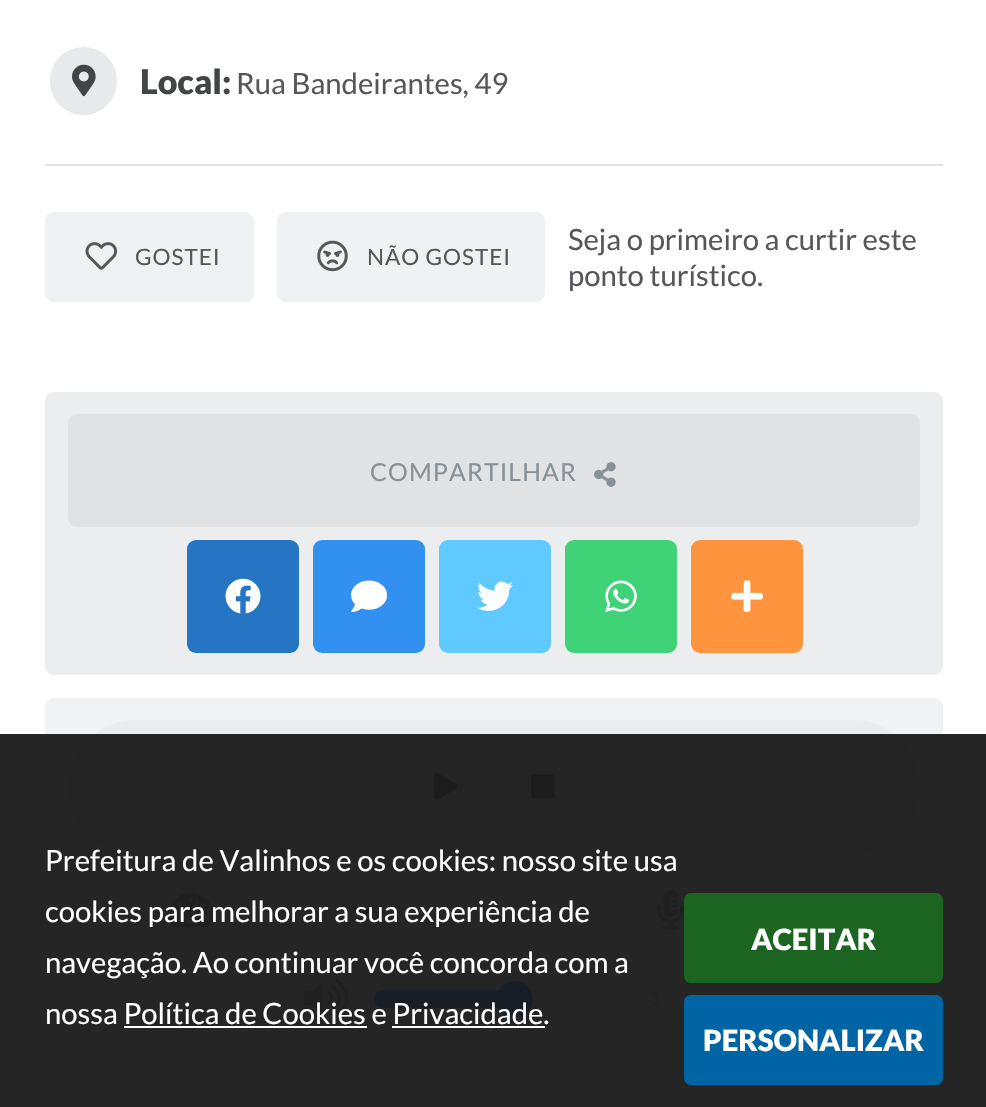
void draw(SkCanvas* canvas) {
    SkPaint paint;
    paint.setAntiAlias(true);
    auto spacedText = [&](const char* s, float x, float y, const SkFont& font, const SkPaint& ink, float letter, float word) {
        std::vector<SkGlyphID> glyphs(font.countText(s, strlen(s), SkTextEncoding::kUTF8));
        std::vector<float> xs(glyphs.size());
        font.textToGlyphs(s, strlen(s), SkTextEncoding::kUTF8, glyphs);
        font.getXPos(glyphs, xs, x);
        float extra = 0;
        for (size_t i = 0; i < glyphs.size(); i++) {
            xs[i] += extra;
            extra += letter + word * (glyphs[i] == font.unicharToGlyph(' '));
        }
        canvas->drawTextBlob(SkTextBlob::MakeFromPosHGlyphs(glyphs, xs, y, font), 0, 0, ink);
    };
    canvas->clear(0xFFFFFFFF);
    paint.setColor(0xFFE8E9EB);
    canvas->drawRoundRect(SkRect::MakeXYWH(50, 47, 67, 68), 33.5f, 33.5f, paint);
    canvas->drawImageRect(SkImages::DeferredFromEncodedData(SkData::MakeFromFileName("img1.png")), SkRect::MakeXYWH(72, 64, 24, 33), SkSamplingOptions());
    SkFont font1(fontMgr->matchFamilyStyle("Lato", SkFontStyle(900, SkFontStyle::kNormal_Width, SkFontStyle::kUpright_Slant)), 34);
    font1.setSubpixel(true);
    paint.setColor(0xFF414548);
    canvas->drawString("Local:", 140, 94, font1, paint);
    SkFont font2(fontMgr->matchFamilyStyle("Lato", SkFontStyle::Normal()), 29.25f);
    font2.setSubpixel(true);
    paint.setColor(0xFF56565B);
    canvas->drawString("Rua Bandeirantes, 49", 236, 94, font2, paint);
    paint.setColor(0xFFDFE1E4);
    canvas->drawRect(SkRect::MakeXYWH(45, 164, 898, 2), paint);
    paint.setColor(0xFFF0F1F2);
    canvas->drawRoundRect(SkRect::MakeXYWH(45, 212, 209, 90), 9, 9, paint);
    canvas->drawImageRect(SkImages::DeferredFromEncodedData(SkData::MakeFromFileName("img2.png")), SkRect::MakeXYWH(85, 242, 33, 28), SkSamplingOptions());
    SkFont font3(fontMgr->matchFamilyStyle("Lato", SkFontStyle::Normal()), 22.5f);
    font3.setSubpixel(true);
    paint.setColor(0xFF56565B);
    spacedText("GOSTEI", 135, 265, font3, paint, 1, 0);
    paint.setColor(0xFFF0F1F2);
    canvas->drawRoundRect(SkRect::MakeXYWH(277, 212, 268, 90), 9, 9, paint);
    canvas->drawImageRect(SkImages::DeferredFromEncodedData(SkData::MakeFromFileName("img3.png")), SkRect::MakeXYWH(317, 240, 31, 32), SkSamplingOptions());
    paint.setColor(0xFF56565B);
    spacedText("NÃO GOSTEI", 367, 265, font3, paint, 1, 0);
    canvas->drawString("Seja o primeiro a curtir este", 568, 250, font2, paint);
    canvas->drawString("ponto turístico.", 568, 286, font2, paint);
    paint.setColor(0xFFEBEDEE);
    canvas->drawRoundRect(SkRect::MakeXYWH(45, 392, 898, 283), 9, 9, paint);
    paint.setColor(0xFFE0E2E3);
    canvas->drawRoundRect(SkRect::MakeXYWH(68, 414, 852, 113), 9, 9, paint);
    SkFont font4(fontMgr->matchFamilyStyle("Lato", SkFontStyle::Normal()), 24.75f);
    font4.setSubpixel(true);
    paint.setColor(0xFF869198);
    spacedText("COMPARTILHAR", 370, 481, font4, paint, 1.1f, 0);
    canvas->drawImageRect(SkImages::DeferredFromEncodedData(SkData::MakeFromFileName("img4.png")), SkRect::MakeXYWH(594, 462, 22, 25), SkSamplingOptions());
    paint.setColor(0xFF2675C5);
    canvas->drawRoundRect(SkRect::MakeXYWH(187, 540, 112, 113), 9, 9, paint);
    canvas->drawImageRect(SkImages::DeferredFromEncodedData(SkData::MakeFromFileName("img5.png")), SkRect::MakeXYWH(225, 578, 36, 36), SkSamplingOptions());
    paint.setColor(0xFF3290F0);
    canvas->drawRoundRect(SkRect::MakeXYWH(313, 540, 112, 113), 9, 9, paint);
    canvas->drawImageRect(SkImages::DeferredFromEncodedData(SkData::MakeFromFileName("img6.png")), SkRect::MakeXYWH(351, 580, 37, 32), SkSamplingOptions());
    paint.setColor(0xFF60C9FF);
    canvas->drawRoundRect(SkRect::MakeXYWH(439, 540, 112, 113), 9, 9, paint);
    canvas->drawImageRect(SkImages::DeferredFromEncodedData(SkData::MakeFromFileName("img7.png")), SkRect::MakeXYWH(477, 581, 36, 30), SkSamplingOptions());
    paint.setColor(0xFF40D277);
    canvas->drawRoundRect(SkRect::MakeXYWH(565, 540, 112, 113), 9, 9, paint);
    canvas->drawImageRect(SkImages::DeferredFromEncodedData(SkData::MakeFromFileName("img8.png")), SkRect::MakeXYWH(605, 580, 32, 32), SkSamplingOptions());
    paint.setColor(0xFFFF943E);
    canvas->drawRoundRect(SkRect::MakeXYWH(691, 540, 112, 113), 9, 9, paint);
    canvas->drawImageRect(SkImages::DeferredFromEncodedData(SkData::MakeFromFileName("img9.png")), SkRect::MakeXYWH(731, 580, 32, 32), SkSamplingOptions());
    paint.setColor(0xFFF0F2F4);
    canvas->drawRoundRect(SkRect::MakeXYWH(45, 698, 898, 355), 9, 9, paint);
    paint.setColor(0xFFEAECEE);
    canvas->drawRoundRect(SkRect::MakeXYWH(68, 720, 852, 135), 67.5f, 67.5f, paint);
    paint.setColor(0xFFDEE0E2);
    canvas->drawCircle(446, 788, 45, paint);
    canvas->drawImageRect(SkImages::DeferredFromEncodedData(SkData::MakeFromFileName("img10.png")), SkRect::MakeXYWH(434, 772, 24, 28), SkSamplingOptions());
    canvas->drawCircle(542, 788, 45, paint);
    canvas->drawImageRect(SkImages::DeferredFromEncodedData(SkData::MakeFromFileName("img11.png")), SkRect::MakeXYWH(531, 774, 24, 25), SkSamplingOptions());
    paint.setColor(0xFFF8F9FA);
    canvas->drawRoundRect(SkRect::MakeXYWH(68, 878, 416, 67), 33.5f, 33.5f, paint);
    canvas->drawImageRect(SkImages::DeferredFromEncodedData(SkData::MakeFromFileName("img12.png")), SkRect::MakeXYWH(168, 892, 46, 36), SkSamplingOptions());
    paint.setStyle(SkPaint::kStroke_Style);
    paint.setStrokeWidth(4.5f);
    paint.setColor(0xFF35353B);
    canvas->drawPath(SkPathBuilder().moveTo(353.5f, 906.5f).lineTo(362.5f, 915.5f).lineTo(371.5f, 906.5f).detach(), paint);
    paint.setStyle(SkPaint::kFill_Style);
    paint.setColor(0xFFF8F9FA);
    canvas->drawRoundRect(SkRect::MakeXYWH(506, 878, 414, 67), 33.5f, 33.5f, paint);
    canvas->drawImageRect(SkImages::DeferredFromEncodedData(SkData::MakeFromFileName("img13.png")), SkRect::MakeXYWH(657, 890, 27, 40), SkSamplingOptions());
    canvas->drawRoundRect(SkRect::MakeXYWH(68, 968, 852, 63), 31.5f, 31.5f, paint);
    canvas->drawImageRect(SkImages::DeferredFromEncodedData(SkData::MakeFromFileName("img14.png")), SkRect::MakeXYWH(303, 979, 46, 38), SkSamplingOptions());
    paint.setColor(0xFFEFEFEF);
    canvas->drawRoundRect(SkRect::MakeXYWH(375, 991, 283, 16), 8, 8, paint);
    paint.setStyle(SkPaint::kStroke_Style);
    paint.setStrokeWidth(2);
    paint.setColor(0xFFB2B2B2);
    canvas->drawRoundRect(SkRect::MakeXYWH(375, 991, 283, 16), 8, 8, paint);
    paint.setStyle(SkPaint::kFill_Style);
    paint.setColor(0xFF0075FF);
    canvas->drawPath(SkPathBuilder().moveTo(383, 990).lineTo(515, 990).lineTo(515, 1008).lineTo(383, 1008).cubicTo(378, 1008, 374, 1004, 374, 999).cubicTo(374, 994, 378, 990, 383, 990).close().detach(), paint);
    canvas->drawCircle(515, 999, 18, paint);
    paint.setColor(0xFFE5E5E5);
    canvas->drawRect(SkRect::MakeXYWH(45, 1096, 898, 2), paint);
    paint.setColor(0xF2191919);
    canvas->drawRect(SkRect::MakeXYWH(0, 734, 986, 373), paint);
    paint.setColor(0xFFFFFFFF);
    canvas->drawString("Prefeitura de Valinhos e os cookies: nosso site usa", 45, 871, font2, paint);
    canvas->drawString("cookies para melhorar a sua experiência de", 45, 922, font2, paint);
    canvas->drawString("navegação. Ao continuar você concorda com a", 45, 973, font2, paint);
    canvas->drawString("nossa Política de Cookies e Privacidade.", 45, 1024, font2, paint);
    canvas->drawRect(SkRect::MakeXYWH(124, 1026, 243, 2), paint);
    canvas->drawRect(SkRect::MakeXYWH(392, 1026, 153, 2), paint);
    paint.setColor(0xFF1B6520);
    canvas->drawRoundRect(SkRect::MakeXYWH(684, 893, 259, 90), 7, 7, paint);
    SkFont font5(fontMgr->matchFamilyStyle("Lato", SkFontStyle(900, SkFontStyle::kNormal_Width, SkFontStyle::kUpright_Slant)), 29.25f);
    font5.setSubpixel(true);
    paint.setColor(0xFFFFFFFF);
    canvas->drawString("ACEITAR", 751, 950, font5, paint);
    paint.setColor(0xFF0164A4);
    canvas->drawRoundRect(SkRect::MakeXYWH(684, 995, 259, 90), 7, 7, paint);
    paint.setColor(0xFFFFFFFF);
    canvas->drawString("PERSONALIZAR", 703, 1051, font5, paint);
}
